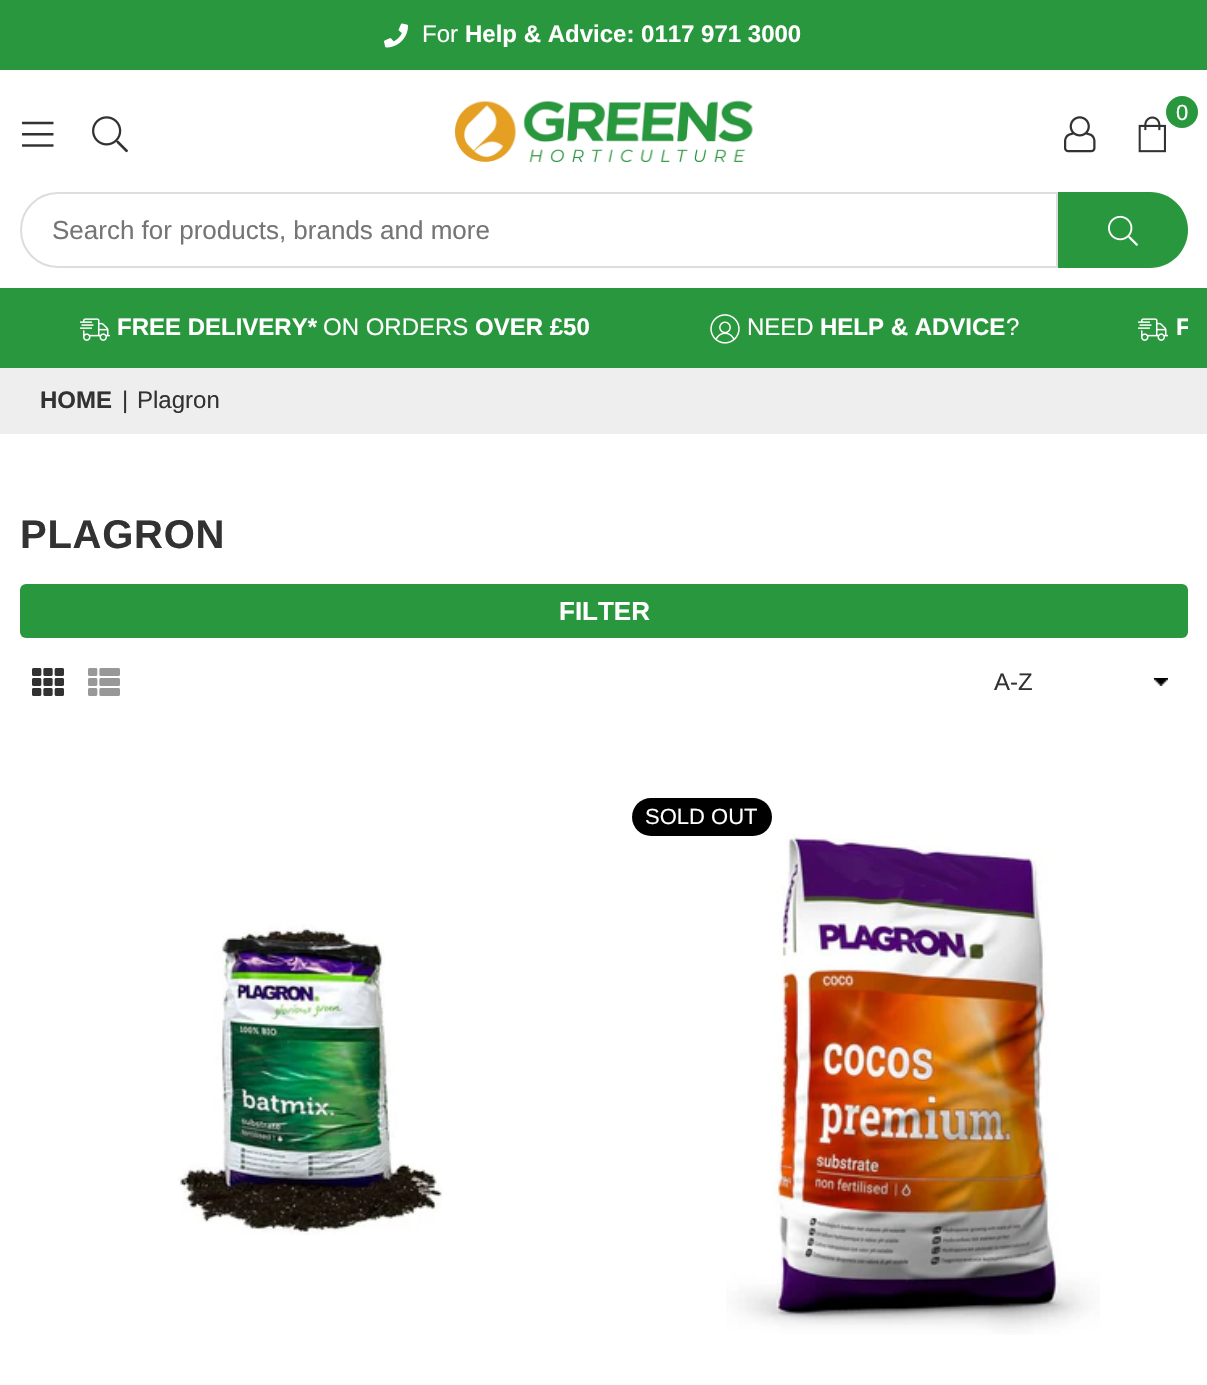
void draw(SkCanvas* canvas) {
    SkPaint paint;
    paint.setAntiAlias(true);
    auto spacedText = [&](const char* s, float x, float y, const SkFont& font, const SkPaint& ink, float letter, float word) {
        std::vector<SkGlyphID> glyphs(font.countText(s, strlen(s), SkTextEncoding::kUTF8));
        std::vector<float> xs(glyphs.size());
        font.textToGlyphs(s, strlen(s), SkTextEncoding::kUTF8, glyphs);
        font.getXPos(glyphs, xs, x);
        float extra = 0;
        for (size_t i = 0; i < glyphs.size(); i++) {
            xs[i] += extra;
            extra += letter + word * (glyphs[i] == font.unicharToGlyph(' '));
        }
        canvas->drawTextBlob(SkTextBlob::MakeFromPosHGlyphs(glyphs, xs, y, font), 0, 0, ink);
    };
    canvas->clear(0xFFFFFFFF);
    paint.setColor(0xFF29973E);
    canvas->drawRect(SkRect::MakeXYWH(0, 0, 1207, 70), paint);
    canvas->drawImageRect(SkImages::DeferredFromEncodedData(SkData::MakeFromFileName("img1.png")), SkRect::MakeXYWH(384, 23, 24, 25), SkSamplingOptions());
    SkFont font1(fontMgr->matchFamilyStyle("Liberation Sans", SkFontStyle::Normal()), 24);
    font1.setSubpixel(true);
    paint.setColor(0xFFFFFFFF);
    canvas->drawString("For", 422, 42, font1, paint);
    SkFont font2(fontMgr->matchFamilyStyle("Liberation Sans", SkFontStyle::Bold()), 24);
    font2.setSubpixel(true);
    canvas->drawString("Help & Advice: 0117 971 3000", 465, 42, font2, paint);
    canvas->drawImageRect(SkImages::DeferredFromEncodedData(SkData::MakeFromFileName("img2.png")), SkRect::MakeXYWH(455, 100, 298, 63), SkSamplingOptions());
    paint.setColor(0xFF29973E);
    canvas->drawCircle(1182, 112, 16, paint);
    SkFont font3(fontMgr->matchFamilyStyle("Liberation Sans", SkFontStyle::Normal()), 22);
    font3.setSubpixel(true);
    paint.setColor(0xFFFFFFFF);
    canvas->drawString("0", 1176, 120, font3, paint);
    canvas->drawImageRect(SkImages::DeferredFromEncodedData(SkData::MakeFromFileName("img3.png")), SkRect::MakeXYWH(1138, 116, 28, 37), SkSamplingOptions());
    canvas->drawImageRect(SkImages::DeferredFromEncodedData(SkData::MakeFromFileName("img4.png")), SkRect::MakeXYWH(1064, 116, 32, 37), SkSamplingOptions());
    canvas->drawImageRect(SkImages::DeferredFromEncodedData(SkData::MakeFromFileName("img5.png")), SkRect::MakeXYWH(22, 121, 32, 26), SkSamplingOptions());
    canvas->drawImageRect(SkImages::DeferredFromEncodedData(SkData::MakeFromFileName("img6.png")), SkRect::MakeXYWH(92, 116, 36, 37), SkSamplingOptions());
    paint.setStyle(SkPaint::kStroke_Style);
    paint.setStrokeWidth(2);
    paint.setColor(0xFFDDDDDD);
    canvas->drawPath(SkPathBuilder().moveTo(58, 193).lineTo(1057, 193).lineTo(1057, 267).lineTo(58, 267).cubicTo(37.5f, 267, 21, 250.5f, 21, 230).cubicTo(21, 209.5f, 37.5f, 193, 58, 193).close().detach(), paint);
    SkFont font4(fontMgr->matchFamilyStyle("Liberation Sans", SkFontStyle::Normal()), 26);
    font4.setSubpixel(true);
    paint.setStyle(SkPaint::kFill_Style);
    paint.setColor(0xFF757575);
    canvas->drawString("Search for products, brands and more", 52, 239, font4, paint);
    paint.setColor(0xFF29973E);
    canvas->drawPath(SkPathBuilder().moveTo(1058, 192).lineTo(1150, 192).cubicTo(1171, 192, 1188, 209, 1188, 230).cubicTo(1188, 251, 1171, 268, 1150, 268).lineTo(1058, 268).close().detach(), paint);
    canvas->drawImageRect(SkImages::DeferredFromEncodedData(SkData::MakeFromFileName("img7.png")), SkRect::MakeXYWH(1108, 215, 30, 31), SkSamplingOptions());
    canvas->drawRect(SkRect::MakeXYWH(0, 288, 1207, 80), paint);
    canvas->drawImageRect(SkImages::DeferredFromEncodedData(SkData::MakeFromFileName("img8.png")), SkRect::MakeXYWH(80, 318, 30, 23), SkSamplingOptions());
    paint.setColor(0xFFFFFFFF);
    canvas->drawString("FREE DELIVERY*", 117, 335, font2, paint);
    canvas->drawString("ON ORDERS", 323, 335, font1, paint);
    canvas->drawString("OVER £50", 475, 335, font2, paint);
    canvas->drawImageRect(SkImages::DeferredFromEncodedData(SkData::MakeFromFileName("img9.png")), SkRect::MakeXYWH(710, 314, 30, 30), SkSamplingOptions());
    canvas->drawString("NEED", 747, 335, font1, paint);
    canvas->drawString("HELP & ADVICE", 820, 335, font2, paint);
    canvas->drawString("?", 1006, 335, font1, paint);
    canvas->drawImageRect(SkImages::DeferredFromEncodedData(SkData::MakeFromFileName("img8.png")), SkRect::MakeXYWH(1138, 318, 30, 23), SkSamplingOptions());
    canvas->save();
    canvas->clipRect(SkRect::MakeXYWH(20, 312, 1168, 32));
    canvas->drawString("F", 1176, 335, font2, paint);
    canvas->restore();
    paint.setColor(0xFFEEEEEE);
    canvas->drawRect(SkRect::MakeXYWH(0, 368, 1207, 66), paint);
    paint.setColor(0xFF323232);
    canvas->drawString("HOME", 40, 408, font2, paint);
    canvas->drawString("|", 122, 408, font1, paint);
    canvas->drawString("Plagron", 137, 408, font1, paint);
    SkFont font5(fontMgr->matchFamilyStyle("Liberation Sans", SkFontStyle::Bold()), 40);
    font5.setSubpixel(true);
    spacedText("PLAGRON", 20, 548, font5, paint, 0.75f, 0);
    paint.setColor(0xFF29973E);
    canvas->drawRoundRect(SkRect::MakeXYWH(20, 584, 1168, 54), 6, 6, paint);
    SkFont font6(fontMgr->matchFamilyStyle("Liberation Sans", SkFontStyle::Bold()), 26);
    font6.setSubpixel(true);
    paint.setColor(0xFFFFFFFF);
    canvas->drawString("FILTER", 559, 620, font6, paint);
    canvas->drawImageRect(SkImages::DeferredFromEncodedData(SkData::MakeFromFileName("img10.png")), SkRect::MakeXYWH(32, 668, 32, 28), SkSamplingOptions());
    canvas->drawImageRect(SkImages::DeferredFromEncodedData(SkData::MakeFromFileName("img11.png")), SkRect::MakeXYWH(88, 668, 32, 28), SkSamplingOptions());
    canvas->drawImageRect(SkImages::DeferredFromEncodedData(SkData::MakeFromFileName("img12.png")), SkRect::MakeXYWH(1154, 678, 14, 8), SkSamplingOptions());
    paint.setColor(0xFF323232);
    canvas->drawString("A-Z", 994, 690, font1, paint);
    canvas->drawImageRect(SkImages::DeferredFromEncodedData(SkData::MakeFromFileName("img13.png")), SkRect::MakeXYWH(726, 834, 374, 501), SkSamplingOptions());
    paint.setColor(0xFF000000);
    canvas->drawRoundRect(SkRect::MakeXYWH(632, 798, 140, 38), 19, 19, paint);
    paint.setColor(0xFFFFFFFF);
    canvas->drawString("SOLD OUT", 645, 824, font3, paint);
    canvas->drawImageRect(SkImages::DeferredFromEncodedData(SkData::MakeFromFileName("img14.png")), SkRect::MakeXYWH(178, 924, 265, 311), SkSamplingOptions());
}
